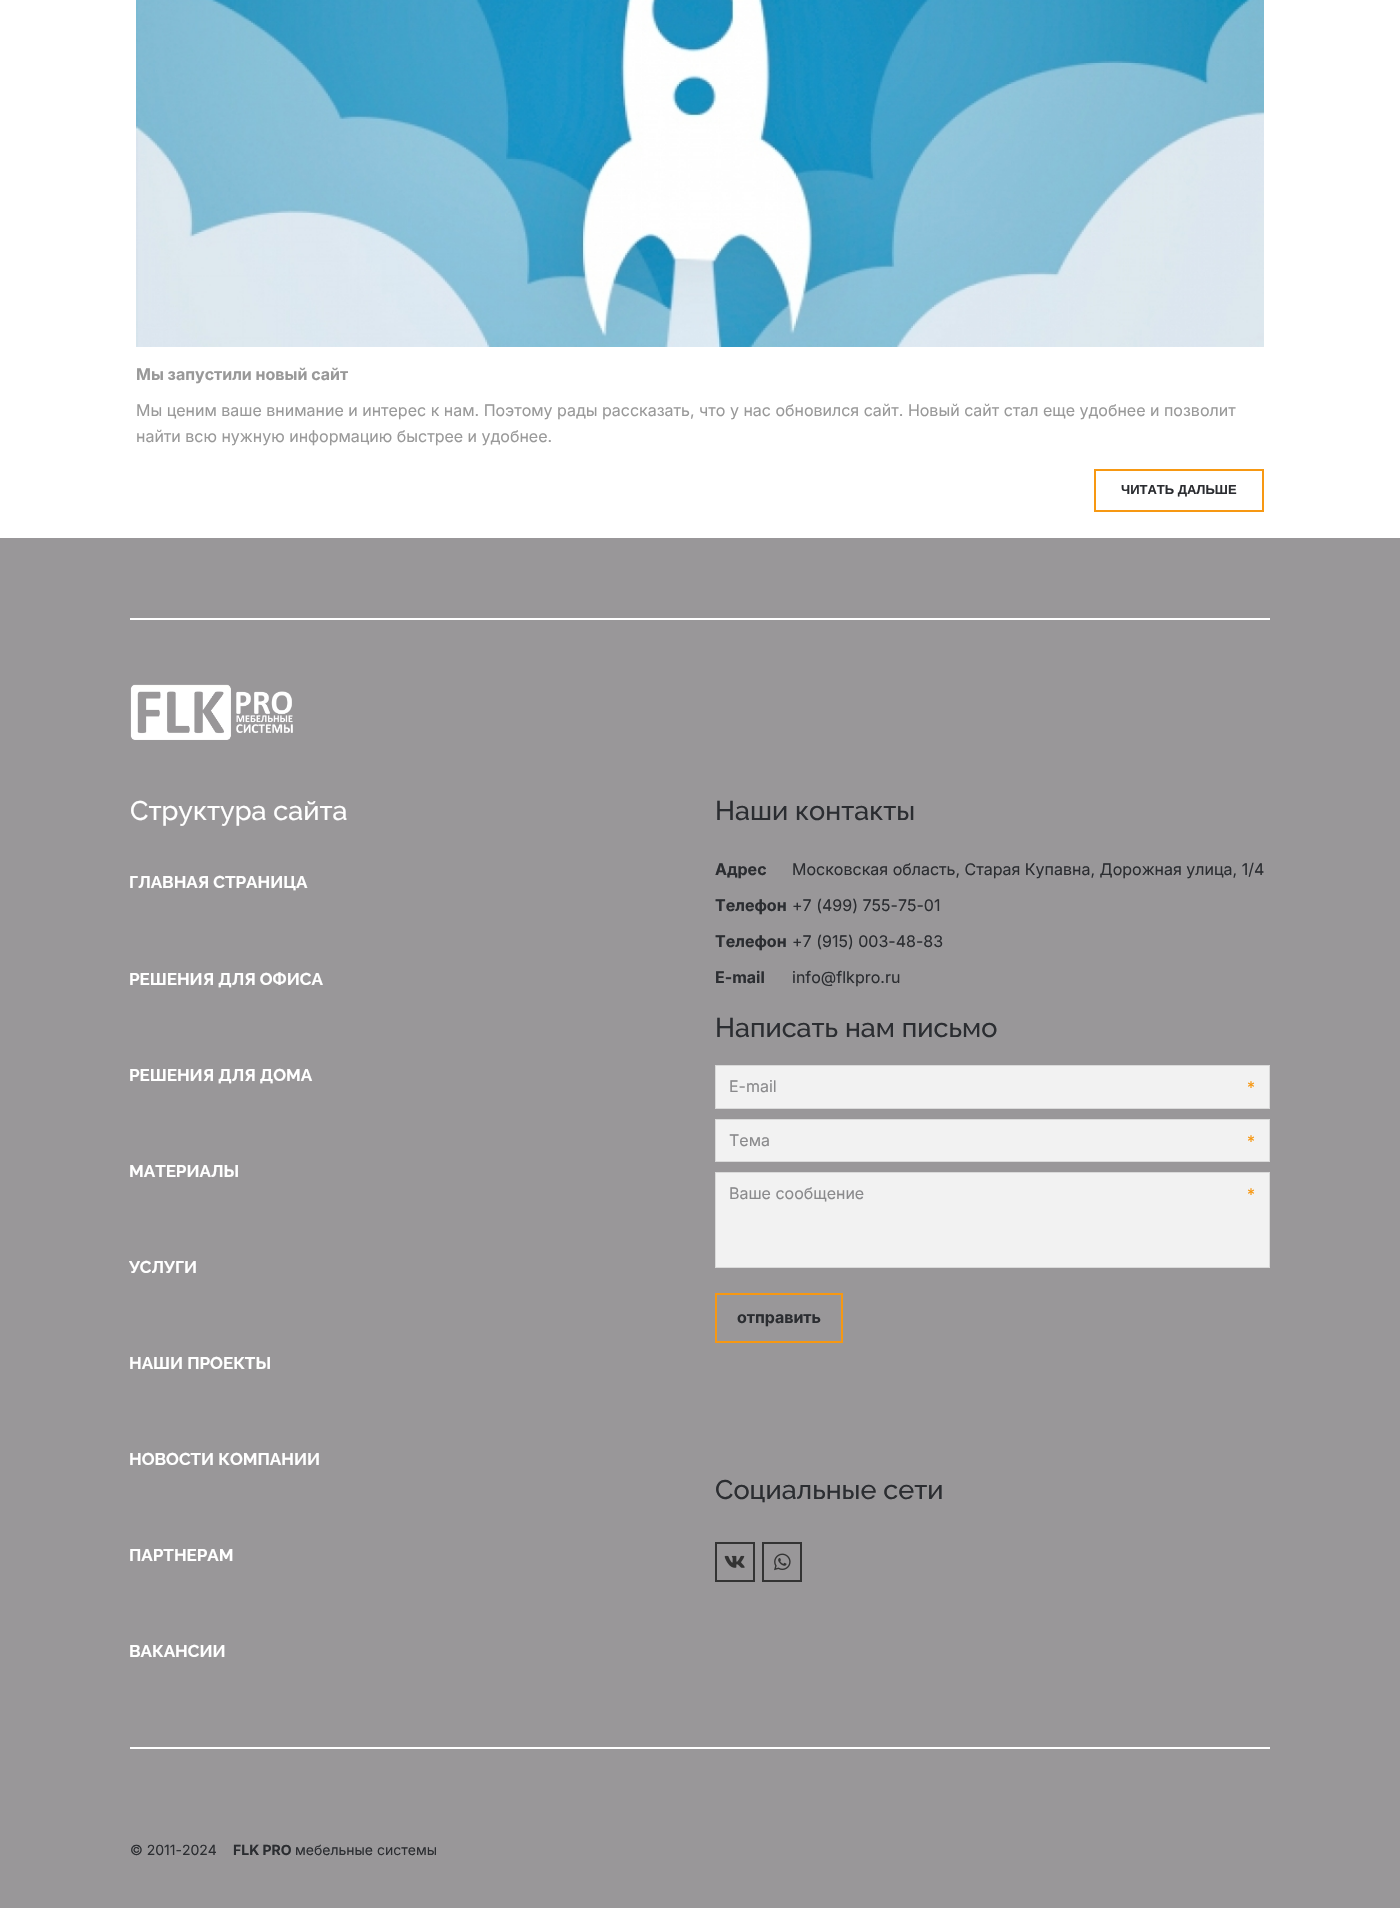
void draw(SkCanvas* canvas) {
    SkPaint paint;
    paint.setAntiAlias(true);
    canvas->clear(0xFFFFFFFF);
    canvas->drawImageRect(SkImages::DeferredFromEncodedData(SkData::MakeFromFileName("img1.png")), SkRect::MakeXYWH(136, 0, 1128, 347), SkSamplingOptions());
    SkFont font1(fontMgr->matchFamilyStyle("Inter", SkFontStyle::Bold()), 16);
    font1.setSubpixel(true);
    paint.setColor(0xFF999999);
    canvas->drawString("Мы запустили новый сайт", 136, 380, font1, paint);
    SkFont font2(fontMgr->matchFamilyStyle("Inter", SkFontStyle::Normal()), 16);
    font2.setSubpixel(true);
    canvas->drawString("Мы ценим ваше внимание и интерес к нам. Поэтому рады рассказать, что у нас обновился сайт. Новый сайт стал еще удобнее и позволит", 136, 416, font2, paint);
    canvas->drawString("найти всю нужную информацию быстрее и удобнее.", 136, 442, font2, paint);
    paint.setStyle(SkPaint::kStroke_Style);
    paint.setStrokeWidth(2);
    paint.setColor(0xFFF79812);
    canvas->drawRect(SkRect::MakeXYWH(1095, 470, 168, 41), paint);
    SkFont font3(fontMgr->matchFamilyStyle("Liberation Sans", SkFontStyle::Bold()), 13);
    font3.setSubpixel(true);
    paint.setStyle(SkPaint::kFill_Style);
    paint.setColor(0xFF2B2D31);
    canvas->drawString("ЧИТАТЬ ДАЛЬШЕ", 1121, 494, font3, paint);
    paint.setColor(0xFF999799);
    canvas->drawRect(SkRect::MakeXYWH(0, 538, 1400, 1370), paint);
    paint.setColor(0xFFFFFFFF);
    canvas->drawRect(SkRect::MakeXYWH(130, 618, 1140, 2), paint);
    canvas->drawImageRect(SkImages::DeferredFromEncodedData(SkData::MakeFromFileName("img2.png")), SkRect::MakeXYWH(130, 684, 163, 56), SkSamplingOptions());
    SkFont font4(fontMgr->matchFamilyStyle("Raleway", SkFontStyle(500, SkFontStyle::kNormal_Width, SkFontStyle::kUpright_Slant)), 27);
    font4.setSubpixel(true);
    canvas->drawString("Структура сайта", 130, 820, font4, paint);
    SkFont font5(fontMgr->matchFamilyStyle("Raleway", SkFontStyle::Bold()), 17);
    font5.setSubpixel(true);
    canvas->drawString("ГЛАВНАЯ СТРАНИЦА", 129, 888, font5, paint);
    canvas->drawString("РЕШЕНИЯ ДЛЯ ОФИСА", 129, 985, font5, paint);
    canvas->drawString("РЕШЕНИЯ ДЛЯ ДОМА", 129, 1081, font5, paint);
    canvas->drawString("МАТЕРИАЛЫ", 129, 1177, font5, paint);
    canvas->drawString("УСЛУГИ", 129, 1273, font5, paint);
    canvas->drawString("НАШИ ПРОЕКТЫ", 129, 1369, font5, paint);
    canvas->drawString("НОВОСТИ КОМПАНИИ", 129, 1465, font5, paint);
    canvas->drawString("ПАРТНЕРАМ", 129, 1561, font5, paint);
    canvas->drawString("ВАКАНСИИ", 129, 1657, font5, paint);
    paint.setColor(0xFF2B2D31);
    canvas->drawString("Наши контакты", 715, 820, font4, paint);
    canvas->drawString("Адрес", 715, 875, font1, paint);
    canvas->drawString("Московская область, Старая Купавна, Дорожная улица, 1/4", 792, 875, font2, paint);
    canvas->drawString("Телефон", 715, 911, font1, paint);
    canvas->drawString("+7 (499) 755-75-01", 792, 911, font2, paint);
    canvas->drawString("Телефон", 715, 947, font1, paint);
    canvas->drawString("+7 (915) 003-48-83", 792, 947, font2, paint);
    canvas->drawString("E-mail", 715, 983, font1, paint);
    canvas->drawString("info@flkpro.ru", 792, 983, font2, paint);
    canvas->drawString("Написать нам письмо", 715, 1037, font4, paint);
    paint.setColor(0xFFF2F2F2);
    canvas->drawRect(SkRect::MakeXYWH(715.5f, 1065.5f, 554, 43), paint);
    paint.setStyle(SkPaint::kStroke_Style);
    paint.setStrokeWidth(1);
    paint.setColor(0xFFDADADA);
    canvas->drawRect(SkRect::MakeXYWH(715.5f, 1065.5f, 554, 43), paint);
    paint.setStyle(SkPaint::kFill_Style);
    paint.setColor(0xFF8A8A8C);
    canvas->drawString("E-mail", 729, 1092, font2, paint);
    paint.setColor(0xFFF79812);
    canvas->drawString("*", 1247, 1093, font2, paint);
    paint.setColor(0xFFF2F2F2);
    canvas->drawRect(SkRect::MakeXYWH(715.5f, 1119.5f, 554, 42), paint);
    paint.setStyle(SkPaint::kStroke_Style);
    paint.setColor(0xFFDADADA);
    canvas->drawRect(SkRect::MakeXYWH(715.5f, 1119.5f, 554, 42), paint);
    paint.setStyle(SkPaint::kFill_Style);
    paint.setColor(0xFF8A8A8C);
    canvas->drawString("Тема", 729, 1146, font2, paint);
    paint.setColor(0xFFF79812);
    canvas->drawString("*", 1247, 1147, font2, paint);
    paint.setColor(0xFFF2F2F2);
    canvas->drawRect(SkRect::MakeXYWH(715.5f, 1172.5f, 554, 95), paint);
    paint.setStyle(SkPaint::kStroke_Style);
    paint.setColor(0xFFDADADA);
    canvas->drawRect(SkRect::MakeXYWH(715.5f, 1172.5f, 554, 95), paint);
    paint.setStyle(SkPaint::kFill_Style);
    paint.setColor(0xFF8A8A8C);
    canvas->drawString("Ваше сообщение", 729, 1199, font2, paint);
    paint.setColor(0xFFF79812);
    canvas->drawString("*", 1247, 1200, font2, paint);
    paint.setStyle(SkPaint::kStroke_Style);
    paint.setStrokeWidth(2);
    canvas->drawRect(SkRect::MakeXYWH(716, 1294, 126, 48), paint);
    paint.setStyle(SkPaint::kFill_Style);
    paint.setColor(0xFF2B2D31);
    canvas->drawString("отправить", 737, 1323, font1, paint);
    canvas->drawString("Социальные сети", 715, 1499, font4, paint);
    paint.setStyle(SkPaint::kStroke_Style);
    paint.setColor(0xFF333333);
    canvas->drawRect(SkRect::MakeXYWH(716, 1543, 38, 38), paint);
    canvas->drawImageRect(SkImages::DeferredFromEncodedData(SkData::MakeFromFileName("img3.png")), SkRect::MakeXYWH(724, 1555, 21, 13), SkSamplingOptions());
    canvas->drawRect(SkRect::MakeXYWH(763, 1543, 38, 38), paint);
    canvas->drawImageRect(SkImages::DeferredFromEncodedData(SkData::MakeFromFileName("img4.png")), SkRect::MakeXYWH(774, 1553, 17, 18), SkSamplingOptions());
    paint.setStyle(SkPaint::kFill_Style);
    paint.setColor(0xFFFFFFFF);
    canvas->drawRect(SkRect::MakeXYWH(130, 1747, 1140, 2), paint);
    SkFont font6(fontMgr->matchFamilyStyle("Inter", SkFontStyle::Normal()), 14);
    font6.setSubpixel(true);
    paint.setColor(0xFF2B2D31);
    canvas->drawString("© 2011-2024", 130, 1855, font6, paint);
    SkFont font7(fontMgr->matchFamilyStyle("Inter", SkFontStyle::Bold()), 14);
    font7.setSubpixel(true);
    canvas->drawString("FLK PRO", 233, 1855, font7, paint);
    canvas->drawString("мебельные системы", 295, 1855, font6, paint);
}
